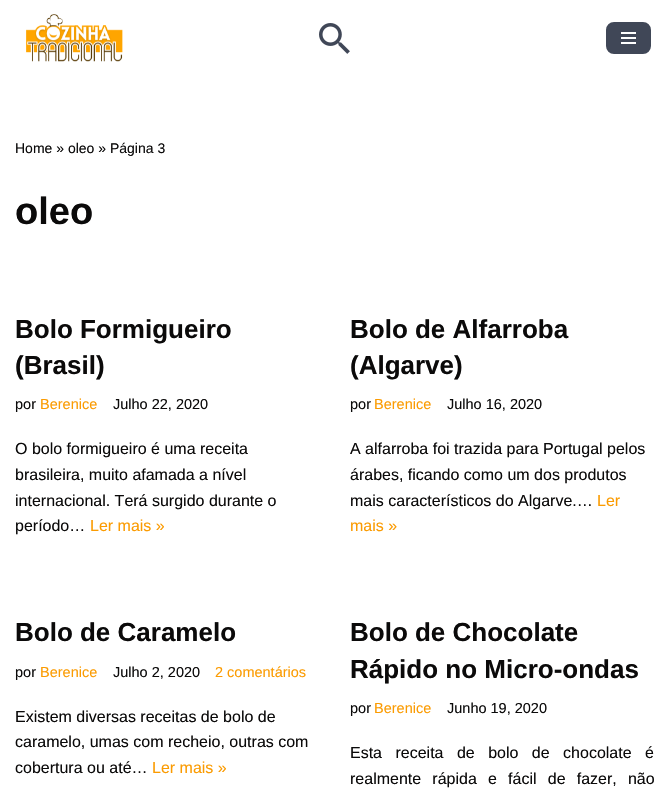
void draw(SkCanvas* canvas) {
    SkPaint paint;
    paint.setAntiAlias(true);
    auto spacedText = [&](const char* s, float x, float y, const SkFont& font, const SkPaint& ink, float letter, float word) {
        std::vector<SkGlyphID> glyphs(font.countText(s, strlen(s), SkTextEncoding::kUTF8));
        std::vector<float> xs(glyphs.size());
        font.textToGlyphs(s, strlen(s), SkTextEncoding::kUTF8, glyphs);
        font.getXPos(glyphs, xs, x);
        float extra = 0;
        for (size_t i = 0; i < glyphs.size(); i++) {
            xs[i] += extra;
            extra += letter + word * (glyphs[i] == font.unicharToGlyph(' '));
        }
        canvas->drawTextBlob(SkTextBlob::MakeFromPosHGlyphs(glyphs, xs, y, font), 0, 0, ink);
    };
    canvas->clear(0xFFFFFFFF);
    canvas->drawImageRect(SkImages::DeferredFromEncodedData(SkData::MakeFromFileName("img1.png")), SkRect::MakeXYWH(26, 14, 97, 48), SkSamplingOptions());
    canvas->drawImageRect(SkImages::DeferredFromEncodedData(SkData::MakeFromFileName("img2.png")), SkRect::MakeXYWH(319, 23, 31, 31), SkSamplingOptions());
    paint.setColor(0xFF404757);
    canvas->drawRoundRect(SkRect::MakeXYWH(604.5f, 20.5f, 48, 35), 9.5f, 9.5f, paint);
    paint.setStyle(SkPaint::kStroke_Style);
    paint.setStrokeWidth(3);
    paint.setColor(0xFFFFFFFF);
    canvas->drawRoundRect(SkRect::MakeXYWH(604.5f, 20.5f, 48, 35), 9.5f, 9.5f, paint);
    paint.setStyle(SkPaint::kFill_Style);
    canvas->drawRect(SkRect::MakeXYWH(621, 32, 15, 2), paint);
    canvas->drawRect(SkRect::MakeXYWH(621, 37, 15, 2), paint);
    canvas->drawRect(SkRect::MakeXYWH(621, 42, 15, 2), paint);
    SkFont font1(fontMgr->matchFamilyStyle("Liberation Sans", SkFontStyle::Normal()), 14);
    font1.setSubpixel(true);
    paint.setColor(0xFF0B0A0A);
    canvas->drawString("Home » oleo » Página 3", 15, 153, font1, paint);
    SkFont font2(fontMgr->matchFamilyStyle("Liberation Sans", SkFontStyle::Bold()), 38);
    font2.setSubpixel(true);
    canvas->drawString("oleo", 15, 224, font2, paint);
    SkFont font3(fontMgr->matchFamilyStyle("Liberation Sans", SkFontStyle::Bold()), 26);
    font3.setSubpixel(true);
    canvas->drawString("Bolo Formigueiro", 15, 338, font3, paint);
    canvas->drawString("(Brasil)", 15, 374, font3, paint);
    SkFont font4(fontMgr->matchFamilyStyle("Liberation Sans", SkFontStyle::Normal()), 14.5f);
    font4.setSubpixel(true);
    canvas->drawString("por", 15, 409, font4, paint);
    paint.setColor(0xFFFB9B01);
    canvas->drawString("Berenice", 40, 409, font4, paint);
    paint.setColor(0xFF0B0A0A);
    canvas->drawString("Julho 22, 2020", 113, 409, font4, paint);
    SkFont font5(fontMgr->matchFamilyStyle("Liberation Sans", SkFontStyle::Normal()), 16);
    font5.setSubpixel(true);
    canvas->drawString("O bolo formigueiro é uma receita", 15, 454, font5, paint);
    canvas->drawString("brasileira, muito afamada a nível", 15, 480, font5, paint);
    canvas->drawString("internacional. Terá surgido durante o", 15, 506, font5, paint);
    canvas->drawString("período…", 15, 531, font5, paint);
    paint.setColor(0xFFFB9B01);
    canvas->drawString("Ler mais »", 90, 531, font5, paint);
    paint.setColor(0xFF0B0A0A);
    canvas->drawString("Bolo de Alfarroba", 350, 338, font3, paint);
    canvas->drawString("(Algarve)", 350, 374, font3, paint);
    canvas->drawString("por", 350, 409, font4, paint);
    paint.setColor(0xFFFB9B01);
    canvas->drawString("Berenice", 374, 409, font4, paint);
    paint.setColor(0xFF0B0A0A);
    canvas->drawString("Julho 16, 2020", 447, 409, font4, paint);
    canvas->drawString("A alfarroba foi trazida para Portugal pelos", 350, 454, font5, paint);
    canvas->drawString("árabes, ficando como um dos produtos", 350, 480, font5, paint);
    canvas->drawString("mais característicos do Algarve.…", 350, 506, font5, paint);
    paint.setColor(0xFFFB9B01);
    canvas->drawString("Ler", 597, 506, font5, paint);
    canvas->drawString("mais »", 350, 531, font5, paint);
    paint.setColor(0xFF0B0A0A);
    canvas->drawString("Bolo de Caramelo", 15, 641, font3, paint);
    canvas->drawString("por", 15, 677, font4, paint);
    paint.setColor(0xFFFB9B01);
    canvas->drawString("Berenice", 40, 677, font4, paint);
    paint.setColor(0xFF0B0A0A);
    canvas->drawString("Julho 2, 2020", 113, 677, font4, paint);
    paint.setColor(0xFFFB9B01);
    canvas->drawString("2 comentários", 215, 677, font4, paint);
    paint.setColor(0xFF0B0A0A);
    canvas->drawString("Existem diversas receitas de bolo de", 15, 722, font5, paint);
    canvas->drawString("caramelo, umas com recheio, outras com", 15, 747, font5, paint);
    canvas->drawString("cobertura ou até…", 15, 773, font5, paint);
    paint.setColor(0xFFFB9B01);
    canvas->drawString("Ler mais »", 152, 773, font5, paint);
    paint.setColor(0xFF0B0A0A);
    canvas->drawString("Bolo de Chocolate", 350, 641, font3, paint);
    canvas->drawString("Rápido no Micro-ondas", 350, 678, font3, paint);
    canvas->drawString("por", 350, 713, font4, paint);
    paint.setColor(0xFFFB9B01);
    canvas->drawString("Berenice", 374, 713, font4, paint);
    paint.setColor(0xFF0B0A0A);
    canvas->drawString("Junho 19, 2020", 447, 713, font4, paint);
    spacedText("Esta receita de bolo de chocolate é", 350, 758, font5, paint, 0, 9);
    spacedText("realmente rápida e fácil de fazer, não", 350, 784, font5, paint, 0, 6.75f);
}
